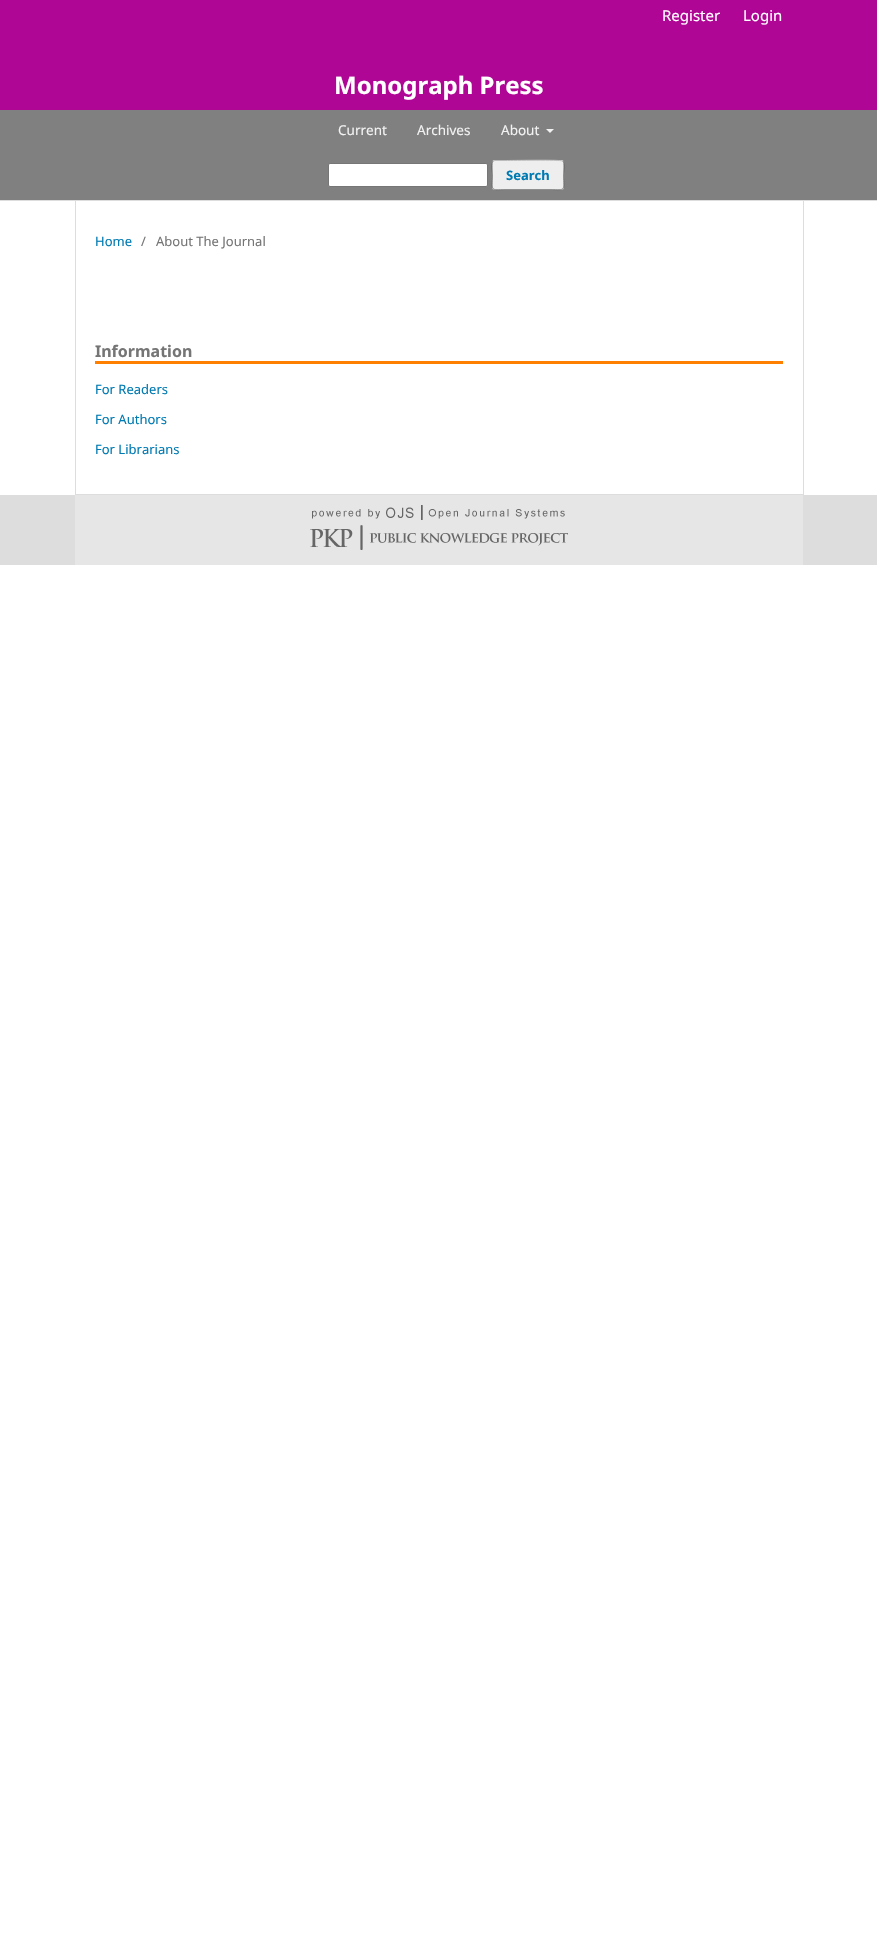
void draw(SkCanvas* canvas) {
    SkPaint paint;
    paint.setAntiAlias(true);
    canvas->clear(0xFFFFFFFF);
    paint.setColor(0xFFB00695);
    canvas->drawRect(SkRect::MakeXYWH(0, 0, 877, 110), paint);
    paint.setColor(0xFFDDDDDD);
    canvas->drawRect(SkRect::MakeXYWH(0, 200, 877, 1), paint);
    SkFont font1(fontMgr->matchFamilyStyle("Noto Sans", SkFontStyle::Normal()), 15);
    font1.setSubpixel(true);
    paint.setColor(0xFFFFFFFF);
    canvas->drawString("Register", 662, 21, font1, paint);
    canvas->drawString("Login", 743, 21, font1, paint);
    SkFont font2(fontMgr->matchFamilyStyle("Noto Sans", SkFontStyle::Bold()), 24);
    font2.setSubpixel(true);
    canvas->drawString("Monograph Press", 334, 94, font2, paint);
    paint.setColor(0xFF808080);
    canvas->drawRect(SkRect::MakeXYWH(0, 110, 877, 90), paint);
    SkFont font3(fontMgr->matchFamilyStyle("Noto Sans", SkFontStyle::Normal()), 13.5f);
    font3.setSubpixel(true);
    paint.setColor(0xFFF2F2F2);
    canvas->drawString("Current", 338, 135, font3, paint);
    canvas->drawString("Archives", 417, 135, font3, paint);
    canvas->drawString("About", 501, 135, font3, paint);
    canvas->drawPath(SkPathBuilder().moveTo(546, 129).lineTo(554, 129).lineTo(550, 133).close().detach(), paint);
    paint.setColor(0xFFFFFFFF);
    canvas->drawRoundRect(SkRect::MakeXYWH(328.5f, 163.5f, 159, 23), 1.5f, 1.5f, paint);
    paint.setStyle(SkPaint::kStroke_Style);
    paint.setStrokeWidth(1);
    paint.setColor(0xFF767676);
    canvas->drawRoundRect(SkRect::MakeXYWH(328.5f, 163.5f, 159, 23), 1.5f, 1.5f, paint);
    paint.setStyle(SkPaint::kFill_Style);
    paint.setColor(0xFFEEEEEE);
    canvas->drawRoundRect(SkRect::MakeXYWH(492, 160, 72, 30), 3, 3, paint);
    paint.setStyle(SkPaint::kStroke_Style);
    paint.setColor(0xFFBBBBBB);
    canvas->drawPath(SkPathBuilder().moveTo(493, 161).lineTo(495, 160.5f).lineTo(506, 160.5f).cubicTo(512.5f, 160.5f, 560.5f, 159.5f, 562.5f, 161).lineTo(563, 161).detach(), paint);
    paint.setColor(0x66000000);
    canvas->drawPath(SkPathBuilder().moveTo(563, 161).cubicTo(564.5f, 163, 563.5f, 172.5f, 563.5f, 175).cubicTo(563.5f, 192, 566.5f, 189.5f, 550, 189.5f).lineTo(506, 189.5f).cubicTo(489.5f, 189.5f, 492.5f, 192, 492.5f, 175).cubicTo(492.5f, 172.5f, 491.5f, 163, 493, 161).detach(), paint);
    SkFont font4(fontMgr->matchFamilyStyle("Noto Sans", SkFontStyle::Bold()), 13);
    font4.setSubpixel(true);
    paint.setStyle(SkPaint::kFill_Style);
    paint.setColor(0xFF007AB2);
    canvas->drawString("Search", 506, 180, font4, paint);
    paint.setColor(0xFFDDDDDD);
    canvas->drawRect(SkRect::MakeXYWH(75, 494, 728, 1), paint);
    canvas->drawRect(SkRect::MakeXYWH(75, 201, 1, 294), paint);
    SkFont font5(fontMgr->matchFamilyStyle("Noto Sans", SkFontStyle::Normal()), 13);
    font5.setSubpixel(true);
    paint.setColor(0xFF007AB2);
    canvas->drawString("Home", 95, 246, font5, paint);
    paint.setColor(0xFF757575);
    canvas->drawString("/", 141, 246, font5, paint);
    canvas->drawString("About The Journal", 156, 246, font5, paint);
    paint.setColor(0xFFDDDDDD);
    canvas->drawRect(SkRect::MakeXYWH(803, 201, 1, 294), paint);
    paint.setColor(0xFFFF8000);
    canvas->drawRect(SkRect::MakeXYWH(95, 361, 688, 3), paint);
    SkFont font6(fontMgr->matchFamilyStyle("Noto Sans", SkFontStyle::Bold()), 16);
    font6.setSubpixel(true);
    paint.setColor(0xFF757575);
    canvas->drawString("Information", 95, 357, font6, paint);
    paint.setColor(0xFF007AB2);
    canvas->drawString("For Readers", 95, 394, font5, paint);
    canvas->drawString("For Authors", 95, 424, font5, paint);
    canvas->drawString("For Librarians", 95, 454, font5, paint);
    paint.setColor(0xFFDDDDDD);
    canvas->drawRect(SkRect::MakeXYWH(0, 495, 877, 70), paint);
    paint.setColor(0xFFE6E6E6);
    canvas->drawRect(SkRect::MakeXYWH(75, 495, 728, 70), paint);
    canvas->drawImageRect(SkImages::DeferredFromEncodedData(SkData::MakeFromFileName("img1.png")), SkRect::MakeXYWH(312, 505, 253, 15), SkSamplingOptions());
    canvas->drawImageRect(SkImages::DeferredFromEncodedData(SkData::MakeFromFileName("img2.png")), SkRect::MakeXYWH(310, 525, 258, 25), SkSamplingOptions());
}
